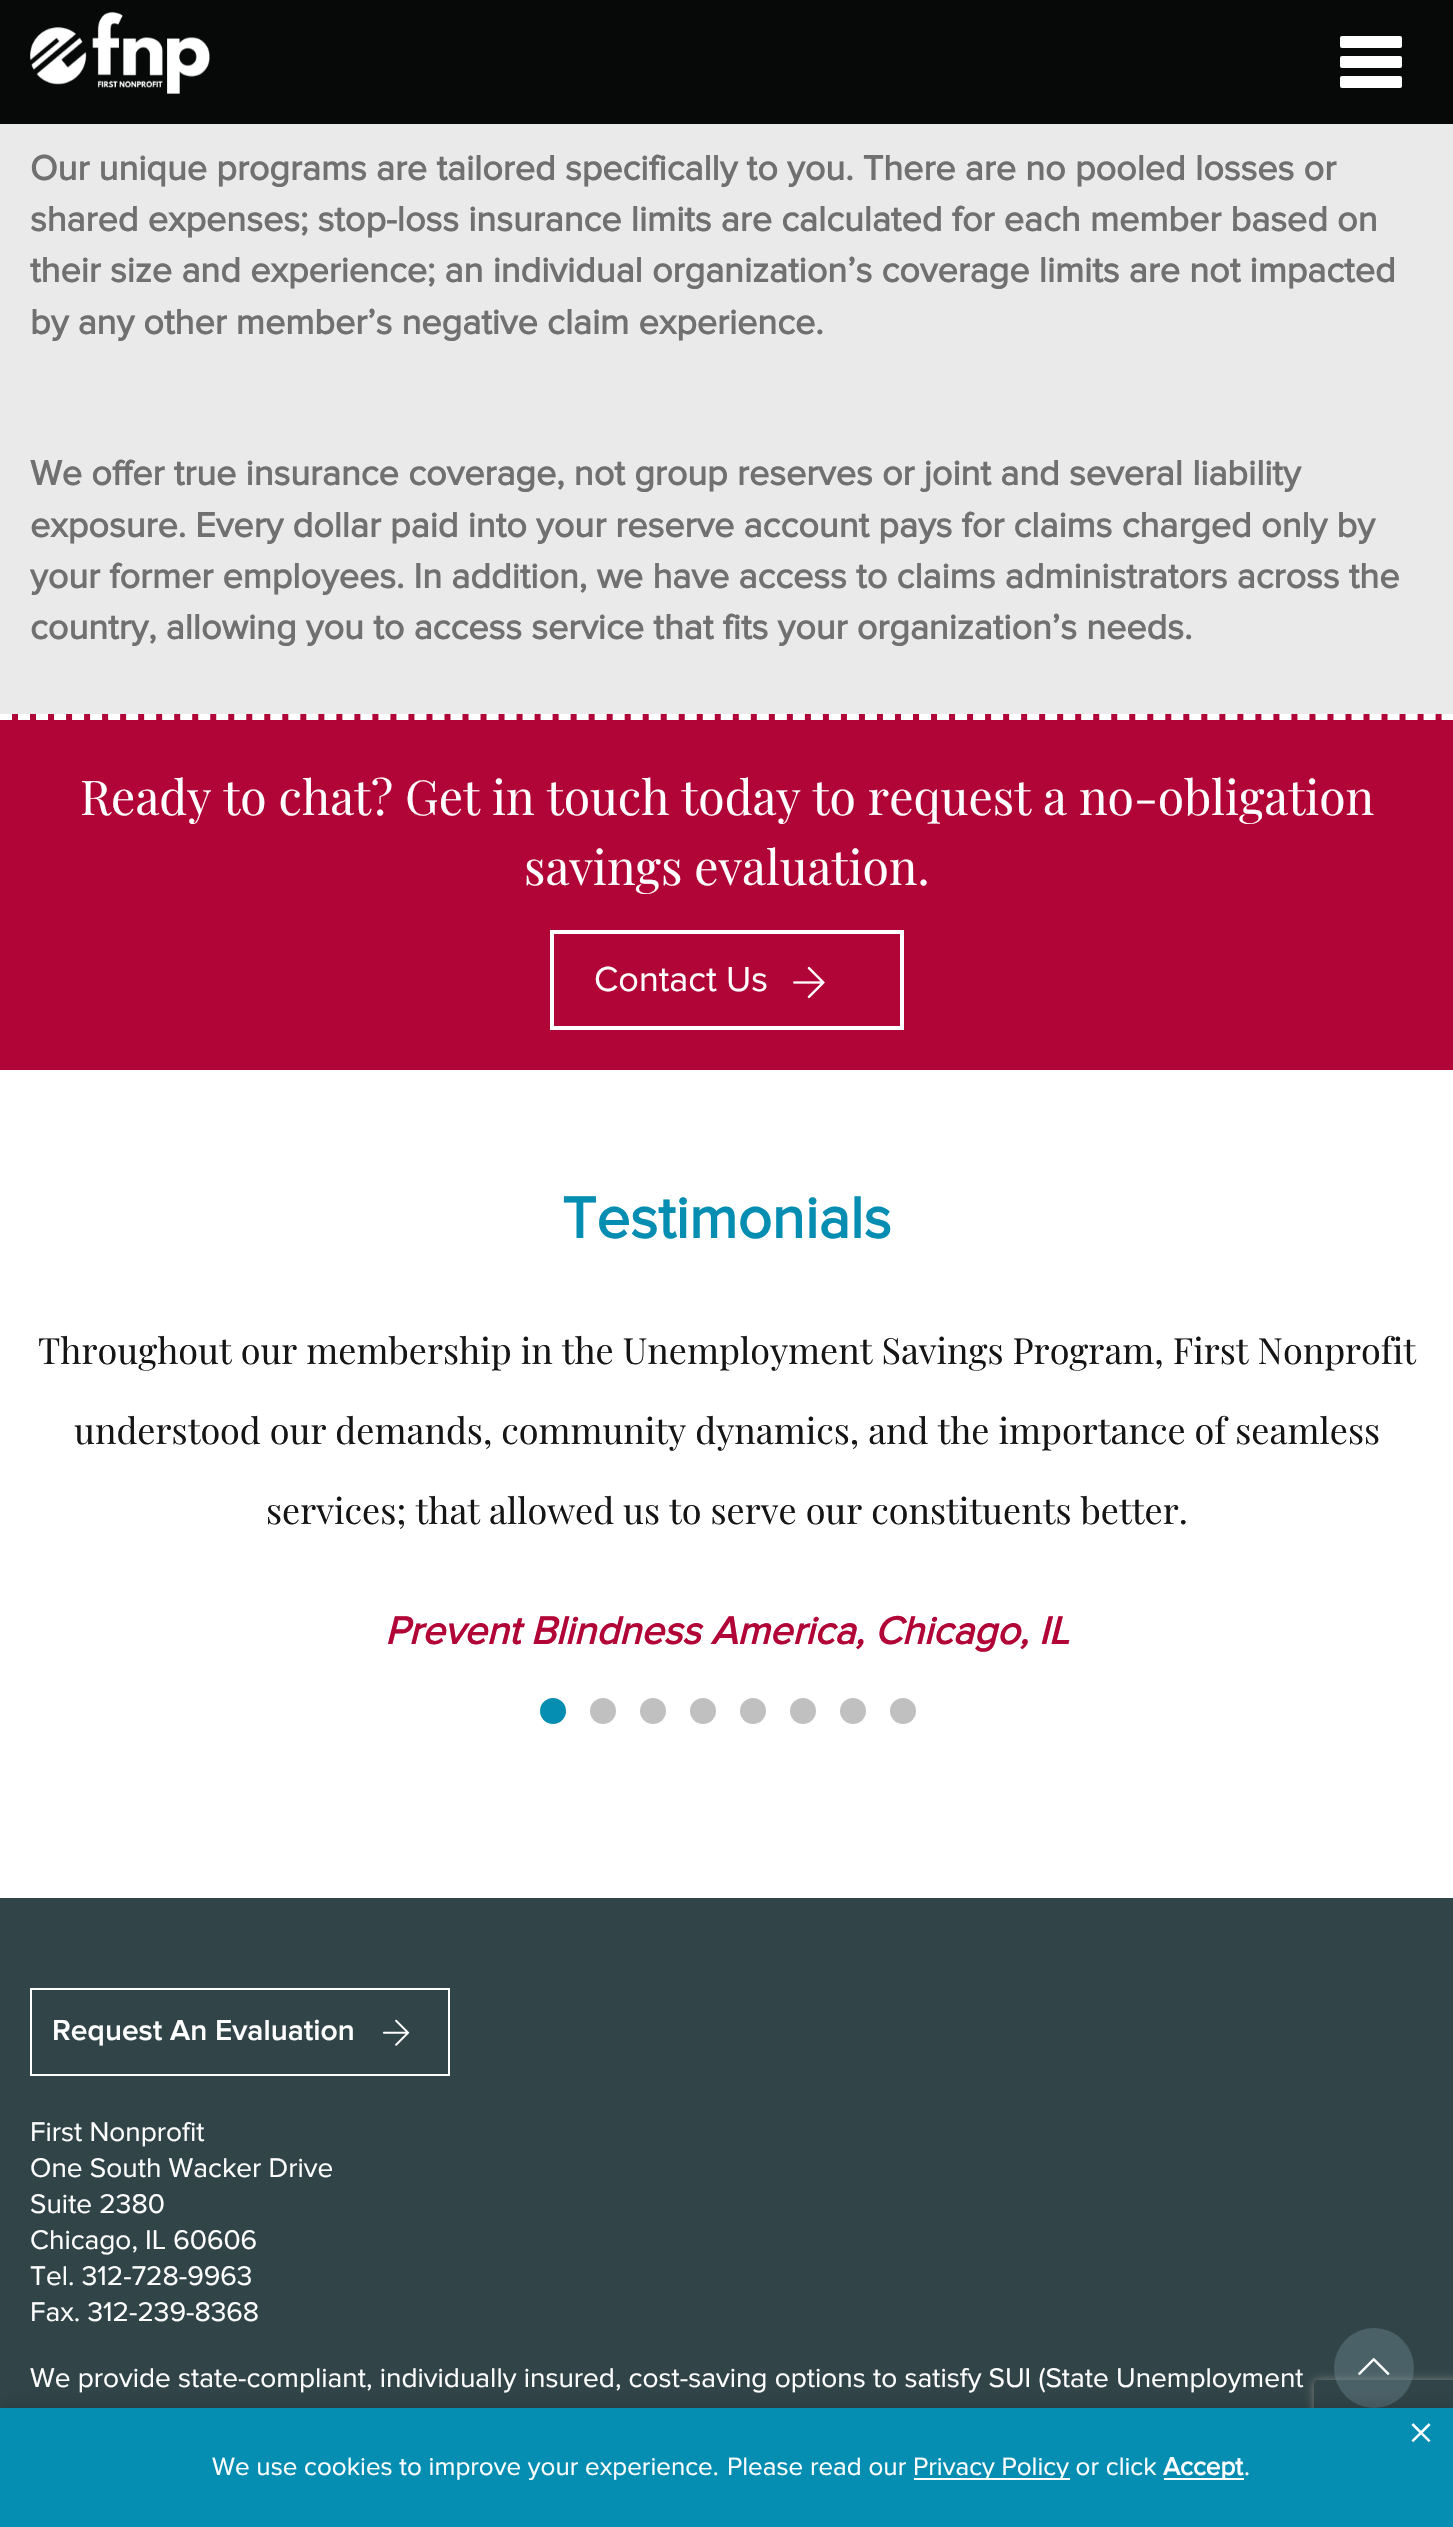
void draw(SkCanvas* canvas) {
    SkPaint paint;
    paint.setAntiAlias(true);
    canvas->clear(0xFFFFFFFF);
    paint.setColor(0xFF070909);
    canvas->drawRect(SkRect::MakeXYWH(0, 0, 1453, 124), paint);
    canvas->drawImageRect(SkImages::DeferredFromEncodedData(SkData::MakeFromFileName("img1.png")), SkRect::MakeXYWH(30, 12, 180, 82), SkSamplingOptions());
    paint.setColor(0xFFFFFFFF);
    canvas->drawRoundRect(SkRect::MakeXYWH(1340, 36, 62, 12), 2, 2, paint);
    canvas->drawRoundRect(SkRect::MakeXYWH(1340, 56, 62, 12), 2, 2, paint);
    canvas->drawRoundRect(SkRect::MakeXYWH(1340, 76, 62, 12), 2, 2, paint);
    paint.setColor(0xFFEAEAEA);
    canvas->drawRect(SkRect::MakeXYWH(0, 124, 1453, 590), paint);
    SkFont font1(fontMgr->matchFamilyStyle("Proxima Nova", SkFontStyle::Bold()), 36);
    font1.setSubpixel(true);
    paint.setColor(0xFF707070);
    canvas->drawString("Our unique programs are tailored specifically to you. There are no pooled losses or", 30, 180, font1, paint);
    canvas->drawString("shared expenses; stop-loss insurance limits are calculated for each member based on", 30, 231, font1, paint);
    canvas->drawString("their size and experience; an individual organization’s coverage limits are not impacted", 30, 282, font1, paint);
    canvas->drawString("by any other member’s negative claim experience.", 30, 334, font1, paint);
    canvas->drawString("We offer true insurance coverage, not group reserves or joint and several liability", 30, 485, font1, paint);
    canvas->drawString("exposure. Every dollar paid into your reserve account pays for claims charged only by", 30, 537, font1, paint);
    canvas->drawString("your former employees. In addition, we have access to claims administrators across the", 30, 588, font1, paint);
    canvas->drawString("country, allowing you to access service that fits your organization’s needs.", 30, 639, font1, paint);
    paint.setColor(0xFFB10537);
    canvas->drawRect(SkRect::MakeXYWH(0, 714, 1453, 356), paint);
    paint.setStyle(SkPaint::kStroke_Style);
    paint.setStrokeWidth(6);
    paint.setColor(0xFFFFFFFF);
    paint.setPathEffect(SkDashPathEffect::Make({{12, 6.02f}}, 0));
    canvas->drawPath(SkPathBuilder().moveTo(0, 717).lineTo(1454, 717).detach(), paint);
    paint.setPathEffect(nullptr);
    SkFont font2(fontMgr->matchFamilyStyle("Playfair Display", SkFontStyle::Normal()), 48);
    font2.setSubpixel(true);
    paint.setStyle(SkPaint::kFill_Style);
    canvas->drawString("Ready to chat? Get in touch today to request a no-obligation", 80, 815, font2, paint);
    canvas->drawString("savings evaluation.", 524, 885, font2, paint);
    paint.setStyle(SkPaint::kStroke_Style);
    paint.setStrokeWidth(4);
    canvas->drawRect(SkRect::MakeXYWH(552, 932, 350, 96), paint);
    SkFont font3(fontMgr->matchFamilyStyle("Proxima Nova", SkFontStyle::Normal()), 36);
    font3.setSubpixel(true);
    paint.setStyle(SkPaint::kFill_Style);
    canvas->drawString("Contact Us", 594, 991, font3, paint);
    canvas->drawImageRect(SkImages::DeferredFromEncodedData(SkData::MakeFromFileName("img2.png")), SkRect::MakeXYWH(793, 966, 32, 33), SkSamplingOptions());
    SkFont font4(fontMgr->matchFamilyStyle("Proxima Nova", SkFontStyle::Bold()), 60);
    font4.setSubpixel(true);
    paint.setColor(0xFF058EB1);
    canvas->drawString("Testimonials", 562, 1238, font4, paint);
    SkFont font5(fontMgr->matchFamilyStyle("Playfair Display", SkFontStyle::Normal()), 36);
    font5.setSubpixel(true);
    paint.setColor(0xFF151515);
    canvas->drawString("Throughout our membership in the Unemployment Savings Program, First Nonprofit", 38, 1364, font5, paint);
    canvas->drawString("understood our demands, community dynamics, and the importance of seamless", 74, 1444, font5, paint);
    canvas->drawString("services; that allowed us to serve our constituents better.", 266, 1524, font5, paint);
    SkFont font6(fontMgr->matchFamilyStyle("Proxima Nova", SkFontStyle::BoldItalic()), 40);
    font6.setSubpixel(true);
    paint.setColor(0xFFB10537);
    canvas->drawString("Prevent Blindness America, Chicago, IL", 385, 1644, font6, paint);
    paint.setColor(0xFF058EB1);
    canvas->drawCircle(553, 1711, 14, paint);
    paint.setStyle(SkPaint::kStroke_Style);
    paint.setStrokeWidth(2);
    paint.setColor(0xFFFFFFFF);
    canvas->drawCircle(553, 1711, 14, paint);
    paint.setStyle(SkPaint::kFill_Style);
    paint.setColor(0xFFC0C0C0);
    canvas->drawCircle(603, 1711, 14, paint);
    paint.setStyle(SkPaint::kStroke_Style);
    paint.setColor(0xFFFFFFFF);
    canvas->drawCircle(603, 1711, 14, paint);
    paint.setStyle(SkPaint::kFill_Style);
    paint.setColor(0xFFC0C0C0);
    canvas->drawCircle(653, 1711, 14, paint);
    paint.setStyle(SkPaint::kStroke_Style);
    paint.setColor(0xFFFFFFFF);
    canvas->drawCircle(653, 1711, 14, paint);
    paint.setStyle(SkPaint::kFill_Style);
    paint.setColor(0xFFC0C0C0);
    canvas->drawCircle(703, 1711, 14, paint);
    paint.setStyle(SkPaint::kStroke_Style);
    paint.setColor(0xFFFFFFFF);
    canvas->drawCircle(703, 1711, 14, paint);
    paint.setStyle(SkPaint::kFill_Style);
    paint.setColor(0xFFC0C0C0);
    canvas->drawCircle(753, 1711, 14, paint);
    paint.setStyle(SkPaint::kStroke_Style);
    paint.setColor(0xFFFFFFFF);
    canvas->drawCircle(753, 1711, 14, paint);
    paint.setStyle(SkPaint::kFill_Style);
    paint.setColor(0xFFC0C0C0);
    canvas->drawCircle(803, 1711, 14, paint);
    paint.setStyle(SkPaint::kStroke_Style);
    paint.setColor(0xFFFFFFFF);
    canvas->drawCircle(803, 1711, 14, paint);
    paint.setStyle(SkPaint::kFill_Style);
    paint.setColor(0xFFC0C0C0);
    canvas->drawCircle(853, 1711, 14, paint);
    paint.setStyle(SkPaint::kStroke_Style);
    paint.setColor(0xFFFFFFFF);
    canvas->drawCircle(853, 1711, 14, paint);
    paint.setStyle(SkPaint::kFill_Style);
    paint.setColor(0xFFC0C0C0);
    canvas->drawCircle(903, 1711, 14, paint);
    paint.setStyle(SkPaint::kStroke_Style);
    paint.setColor(0xFFFFFFFF);
    canvas->drawCircle(903, 1711, 14, paint);
    paint.setStyle(SkPaint::kFill_Style);
    paint.setColor(0xFF314448);
    canvas->drawRect(SkRect::MakeXYWH(0, 1898, 1453, 510), paint);
    paint.setStyle(SkPaint::kStroke_Style);
    paint.setColor(0xFFFFFFFF);
    canvas->drawRect(SkRect::MakeXYWH(31, 1989, 418, 86), paint);
    SkFont font7(fontMgr->matchFamilyStyle("Proxima Nova", SkFontStyle(600, SkFontStyle::kNormal_Width, SkFontStyle::kUpright_Slant)), 30);
    font7.setSubpixel(true);
    paint.setStyle(SkPaint::kFill_Style);
    canvas->drawString("Request An Evaluation", 52, 2040, font7, paint);
    canvas->drawImageRect(SkImages::DeferredFromEncodedData(SkData::MakeFromFileName("img3.png")), SkRect::MakeXYWH(383, 2019, 27, 27), SkSamplingOptions());
    SkFont font8(fontMgr->matchFamilyStyle("Proxima Nova", SkFontStyle::Normal()), 28);
    font8.setSubpixel(true);
    canvas->drawString("First Nonprofit", 30, 2141, font8, paint);
    canvas->drawString("One South Wacker Drive", 30, 2177, font8, paint);
    canvas->drawString("Suite 2380", 30, 2213, font8, paint);
    canvas->drawString("Chicago, IL 60606", 30, 2249, font8, paint);
    canvas->drawString("Tel. 312-728-9963", 30, 2285, font8, paint);
    canvas->drawString("Fax. 312-239-8368", 30, 2321, font8, paint);
    canvas->drawString("We provide state-compliant, individually insured, cost-saving options to satisfy SUI (State Unemployment", 30, 2387, font8, paint);
    canvas->save();
    canvas->clipPath(SkPathBuilder(SkPathFillType::kEvenOdd).moveTo(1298, 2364).lineTo(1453, 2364).lineTo(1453, 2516).lineTo(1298, 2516).close().moveTo(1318, 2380).lineTo(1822, 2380).cubicTo(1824, 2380, 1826, 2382, 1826, 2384).lineTo(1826, 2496).cubicTo(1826, 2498, 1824, 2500, 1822, 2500).lineTo(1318, 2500).cubicTo(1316, 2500, 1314, 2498, 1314, 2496).lineTo(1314, 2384).cubicTo(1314, 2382, 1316, 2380, 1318, 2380).close().detach(), true);
    paint.setColor(0xFF808080);
    paint.setMaskFilter(SkMaskFilter::MakeBlur(kNormal_SkBlurStyle, 5));
    canvas->drawRoundRect(SkRect::MakeXYWH(1314, 2380, 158, 120), 4, 4, paint);
    paint.setMaskFilter(nullptr);
    canvas->restore();
    paint.setColor(0x666D8D93);
    canvas->drawCircle(1374, 2368, 40, paint);
    canvas->drawImageRect(SkImages::DeferredFromEncodedData(SkData::MakeFromFileName("img4.png")), SkRect::MakeXYWH(1358, 2358, 32, 17), SkSamplingOptions());
    paint.setColor(0x1A000000);
    paint.setMaskFilter(SkMaskFilter::MakeBlur(kNormal_SkBlurStyle, 5));
    canvas->drawRect(SkRect::MakeXYWH(0, 2402, 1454, 120), paint);
    paint.setMaskFilter(nullptr);
    paint.setColor(0xFF058EB2);
    canvas->drawRect(SkRect::MakeXYWH(0, 2408, 1453, 119), paint);
    SkFont font9(fontMgr->matchFamilyStyle("Proxima Nova", SkFontStyle::Normal()), 26);
    font9.setSubpixel(true);
    paint.setColor(0xFFFFFFFF);
    canvas->drawString("We use cookies to improve your experience.", 212, 2475, font9, paint);
    SkFont font10(fontMgr->matchFamilyStyle("Liberation Serif", SkFontStyle::Normal()), 46);
    font10.setSubpixel(true);
    canvas->drawString("×", 1408, 2448, font10, paint);
    canvas->drawString("Please read our", 727, 2475, font9, paint);
    canvas->drawRect(SkRect::MakeXYWH(914, 2478, 156, 2), paint);
    canvas->drawString("Privacy Policy or click", 913, 2475, font9, paint);
    canvas->drawRect(SkRect::MakeXYWH(1164, 2478, 80, 2), paint);
    SkFont font11(fontMgr->matchFamilyStyle("Proxima Nova", SkFontStyle::Bold()), 26);
    font11.setSubpixel(true);
    canvas->drawString("Accept", 1163, 2475, font11, paint);
    canvas->drawString(".", 1244, 2475, font9, paint);
}
